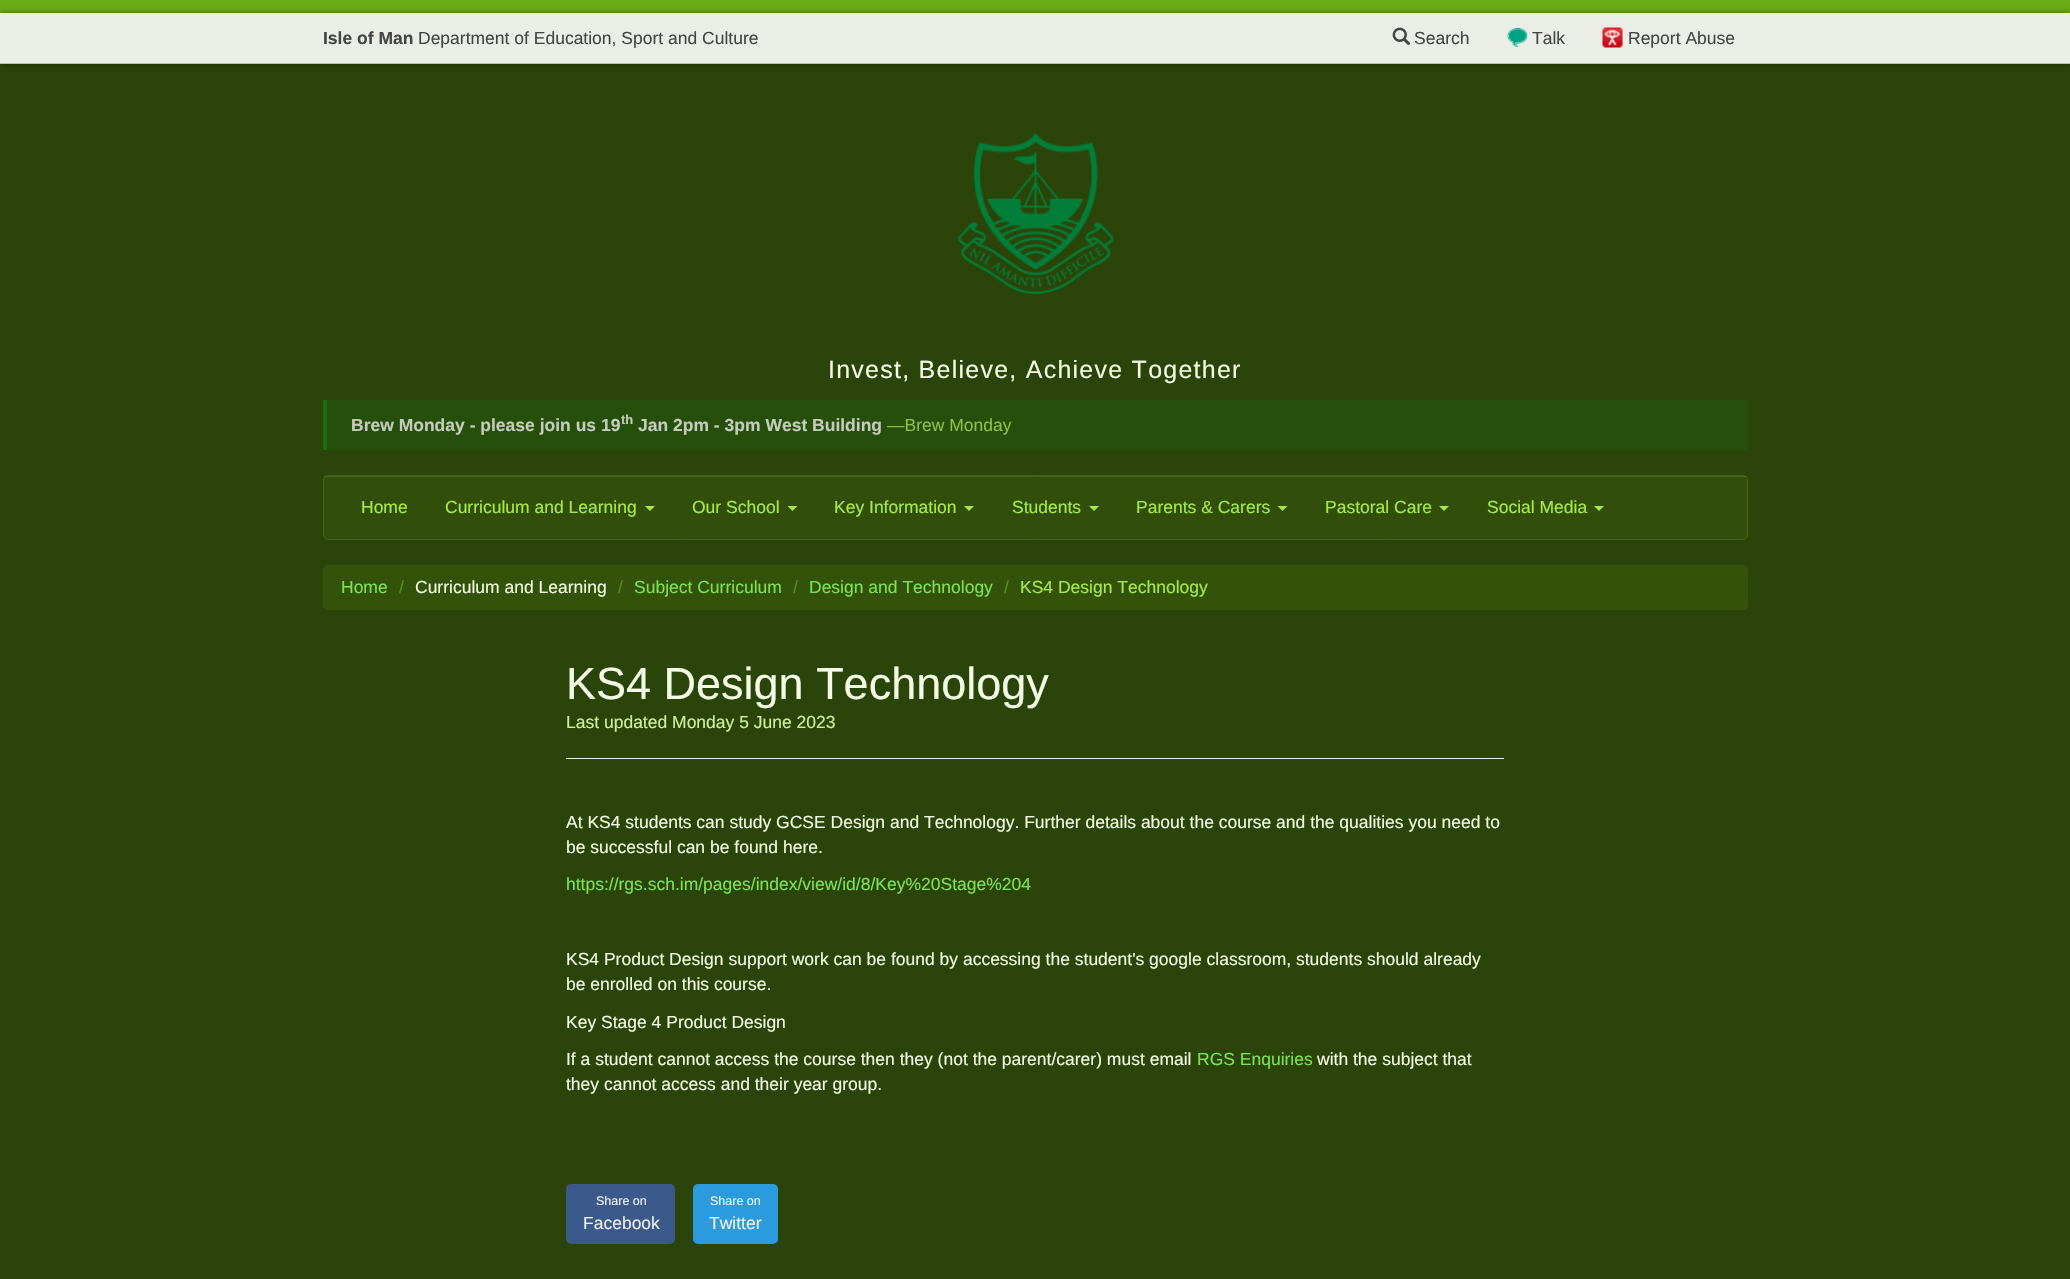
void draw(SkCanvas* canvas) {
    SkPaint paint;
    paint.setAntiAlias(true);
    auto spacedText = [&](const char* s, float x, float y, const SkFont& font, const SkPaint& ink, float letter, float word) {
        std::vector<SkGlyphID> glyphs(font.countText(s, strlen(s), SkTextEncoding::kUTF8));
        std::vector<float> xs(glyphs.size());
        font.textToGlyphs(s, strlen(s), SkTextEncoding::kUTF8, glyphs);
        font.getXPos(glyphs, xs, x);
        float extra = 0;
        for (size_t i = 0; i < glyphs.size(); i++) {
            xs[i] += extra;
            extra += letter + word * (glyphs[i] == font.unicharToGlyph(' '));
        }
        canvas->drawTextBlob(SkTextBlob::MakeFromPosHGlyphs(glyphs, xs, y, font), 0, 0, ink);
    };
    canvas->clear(0xFF2B4409);
    paint.setColor(0xFF6BAB15);
    canvas->drawRect(SkRect::MakeXYWH(0, 0, 2070, 13), paint);
    canvas->save();
    canvas->clipPath(SkPathBuilder(SkPathFillType::kEvenOdd).moveTo(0, 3).lineTo(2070, 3).lineTo(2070, 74).lineTo(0, 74).close().moveTo(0, 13).lineTo(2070, 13).lineTo(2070, 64).lineTo(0, 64).close().detach(), true);
    paint.setColor(0x66000000);
    paint.setMaskFilter(SkMaskFilter::MakeBlur(kNormal_SkBlurStyle, 3));
    canvas->drawRect(SkRect::MakeXYWH(0, 13, 2070, 51), paint);
    paint.setMaskFilter(nullptr);
    canvas->restore();
    paint.setColor(0xE6FFFFFF);
    canvas->drawRect(SkRect::MakeXYWH(0, 13, 2070, 50), paint);
    paint.setColor(0xFFBBBDB8);
    canvas->drawRect(SkRect::MakeXYWH(0, 63, 2070, 1), paint);
    SkFont font1(fontMgr->matchFamilyStyle("Liberation Sans", SkFontStyle::Bold()), 17.5f);
    font1.setSubpixel(true);
    paint.setColor(0xFF444444);
    canvas->drawString("Isle of Man", 323, 44, font1, paint);
    SkFont font2(fontMgr->matchFamilyStyle("Liberation Sans", SkFontStyle::Normal()), 17.5f);
    font2.setSubpixel(true);
    canvas->drawString("Department of Education, Sport and Culture", 418, 44, font2, paint);
    canvas->drawImageRect(SkImages::DeferredFromEncodedData(SkData::MakeFromFileName("img1.png")), SkRect::MakeXYWH(1392, 27, 19, 19), SkSamplingOptions());
    canvas->drawString("Search", 1414, 44, font2, paint);
    canvas->drawImageRect(SkImages::DeferredFromEncodedData(SkData::MakeFromFileName("img2.png")), SkRect::MakeXYWH(1507, 28, 21, 19), SkSamplingOptions());
    canvas->drawString("Talk", 1532, 44, font2, paint);
    canvas->drawImageRect(SkImages::DeferredFromEncodedData(SkData::MakeFromFileName("img3.png")), SkRect::MakeXYWH(1602, 27, 21, 21), SkSamplingOptions());
    canvas->drawString("Report Abuse", 1628, 44, font2, paint);
    canvas->drawImageRect(SkImages::DeferredFromEncodedData(SkData::MakeFromFileName("img4.png")), SkRect::MakeXYWH(957, 132, 157, 163), SkSamplingOptions());
    SkFont font3(fontMgr->matchFamilyStyle("Liberation Sans", SkFontStyle::Normal()), 25);
    font3.setSubpixel(true);
    paint.setColor(0xFFF2FCE5);
    spacedText("Invest, Believe, Achieve Together", 828, 378, font3, paint, 1.25f, 0);
    paint.setColor(0xFF254F0B);
    canvas->drawRect(SkRect::MakeXYWH(327, 400, 1421, 50), paint);
    paint.setColor(0xFF196F10);
    canvas->drawRect(SkRect::MakeXYWH(323, 400, 4, 50), paint);
    paint.setColor(0xFFC6CCBD);
    canvas->drawString("Brew Monday - please join us 19", 351, 431, font1, paint);
    SkFont font4(fontMgr->matchFamilyStyle("Liberation Sans", SkFontStyle::Bold()), 13);
    font4.setSubpixel(true);
    canvas->drawString("th", 621, 424, font4, paint);
    canvas->drawString("Jan 2pm - 3pm West Building", 638, 431, font1, paint);
    paint.setColor(0xFF8EBF4C);
    canvas->drawString("—Brew Monday", 887, 431, font2, paint);
    paint.setColor(0xFF314F0A);
    canvas->drawRoundRect(SkRect::MakeXYWH(323.5f, 475.5f, 1424, 64), 4.5f, 4.5f, paint);
    paint.setStyle(SkPaint::kStroke_Style);
    paint.setStrokeWidth(1);
    paint.setColor(0xFF41680D);
    canvas->drawRoundRect(SkRect::MakeXYWH(323.5f, 475.5f, 1424, 64), 4.5f, 4.5f, paint);
    paint.setStyle(SkPaint::kFill_Style);
    paint.setColor(0x1AFFFFFF);
    canvas->drawRect(SkRect::MakeXYWH(324, 476, 1422, 1), paint);
    paint.setColor(0xFFA6E84B);
    canvas->drawString("Home", 361, 513, font2, paint);
    canvas->drawString("Curriculum and Learning", 445, 513, font2, paint);
    canvas->drawPath(SkPathBuilder().moveTo(645, 506).lineTo(655, 506).lineTo(650, 511).close().detach(), paint);
    canvas->drawString("Our School", 692, 513, font2, paint);
    canvas->drawPath(SkPathBuilder().moveTo(787.5f, 506).lineTo(797.5f, 506).lineTo(792.5f, 511).close().detach(), paint);
    canvas->drawString("Key Information", 834, 513, font2, paint);
    canvas->drawPath(SkPathBuilder().moveTo(964, 506).lineTo(974, 506).lineTo(969, 511).close().detach(), paint);
    canvas->drawString("Students", 1012, 513, font2, paint);
    canvas->drawPath(SkPathBuilder().moveTo(1089, 506).lineTo(1099, 506).lineTo(1094, 511).close().detach(), paint);
    canvas->drawString("Parents & Carers", 1136, 513, font2, paint);
    canvas->drawPath(SkPathBuilder().moveTo(1277.5f, 506).lineTo(1287.5f, 506).lineTo(1282.5f, 511).close().detach(), paint);
    canvas->drawString("Pastoral Care", 1325, 513, font2, paint);
    canvas->drawPath(SkPathBuilder().moveTo(1439, 506).lineTo(1449, 506).lineTo(1444, 511).close().detach(), paint);
    canvas->drawString("Social Media", 1487, 513, font2, paint);
    canvas->drawPath(SkPathBuilder().moveTo(1594, 506).lineTo(1604, 506).lineTo(1599, 511).close().detach(), paint);
    paint.setColor(0xFF34530A);
    canvas->drawRoundRect(SkRect::MakeXYWH(323, 565, 1425, 45), 5, 5, paint);
    paint.setColor(0xFF7BE354);
    canvas->drawString("Home", 341, 593, font2, paint);
    paint.setColor(0xFF5B9112);
    canvas->drawString("/", 399, 593, font2, paint);
    paint.setColor(0xFFF2FCE5);
    canvas->drawString("Curriculum and Learning", 415, 593, font2, paint);
    paint.setColor(0xFF5B9112);
    canvas->drawString("/", 618, 593, font2, paint);
    paint.setColor(0xFF7BE354);
    canvas->drawString("Subject Curriculum", 634, 593, font2, paint);
    paint.setColor(0xFF5B9112);
    canvas->drawString("/", 793, 593, font2, paint);
    paint.setColor(0xFF7BE354);
    canvas->drawString("Design and Technology", 809, 593, font2, paint);
    paint.setColor(0xFF5B9112);
    canvas->drawString("/", 1004, 593, font2, paint);
    paint.setColor(0xFFA6E84B);
    canvas->drawString("KS4 Design Technology", 1020, 593, font2, paint);
    paint.setColor(0xFFEEEEEE);
    canvas->drawRect(SkRect::MakeXYWH(566, 758, 938, 1), paint);
    SkFont font5(fontMgr->matchFamilyStyle("Liberation Sans", SkFontStyle::Normal()), 45);
    font5.setSubpixel(true);
    paint.setColor(0xFFF2FCE5);
    canvas->drawString("KS4 Design Technology", 566, 699, font5, paint);
    paint.setColor(0xFFCCF298);
    canvas->drawString("Last updated Monday 5 June 2023", 566, 728, font2, paint);
    paint.setColor(0xFFF2FCE5);
    canvas->drawString("At KS4 students can study GCSE Design and Technology. Further details about the course and the qualities you need to", 566, 828, font2, paint);
    canvas->drawString("be successful can be found here.", 566, 853, font2, paint);
    paint.setColor(0xFF7BE354);
    canvas->drawString("https://rgs.sch.im/pages/index/view/id/8/Key%20Stage%204", 566, 890, font2, paint);
    paint.setColor(0xFFF2FCE5);
    canvas->drawString("KS4 Product Design support work can be found by accessing the student's google classroom, students should already", 566, 965, font2, paint);
    canvas->drawString("be enrolled on this course.", 566, 990, font2, paint);
    canvas->drawString("Key Stage 4 Product Design", 566, 1028, font2, paint);
    canvas->drawString("If a student cannot access the course then they (not the parent/carer) must email", 566, 1065, font2, paint);
    paint.setColor(0xFF7BE354);
    canvas->drawString("RGS Enquiries", 1197, 1065, font2, paint);
    paint.setColor(0xFFF2FCE5);
    canvas->drawString("with the subject that", 1317, 1065, font2, paint);
    canvas->drawString("they cannot access and their year group.", 566, 1090, font2, paint);
    paint.setColor(0xFF3B598B);
    canvas->drawRoundRect(SkRect::MakeXYWH(566, 1184, 109, 60), 5, 5, paint);
    SkFont font6(fontMgr->matchFamilyStyle("Liberation Sans", SkFontStyle::Normal()), 12.5f);
    font6.setSubpixel(true);
    paint.setColor(0xFFEEF0EB);
    canvas->drawString("Share on", 596, 1205, font6, paint);
    canvas->drawString("Facebook", 583, 1229, font2, paint);
    paint.setColor(0xFF2B9BDD);
    canvas->drawRoundRect(SkRect::MakeXYWH(693, 1184, 85, 60), 5, 5, paint);
    paint.setColor(0xFFEEF0EB);
    canvas->drawString("Share on", 710, 1205, font6, paint);
    canvas->drawString("Twitter", 709, 1229, font2, paint);
}
